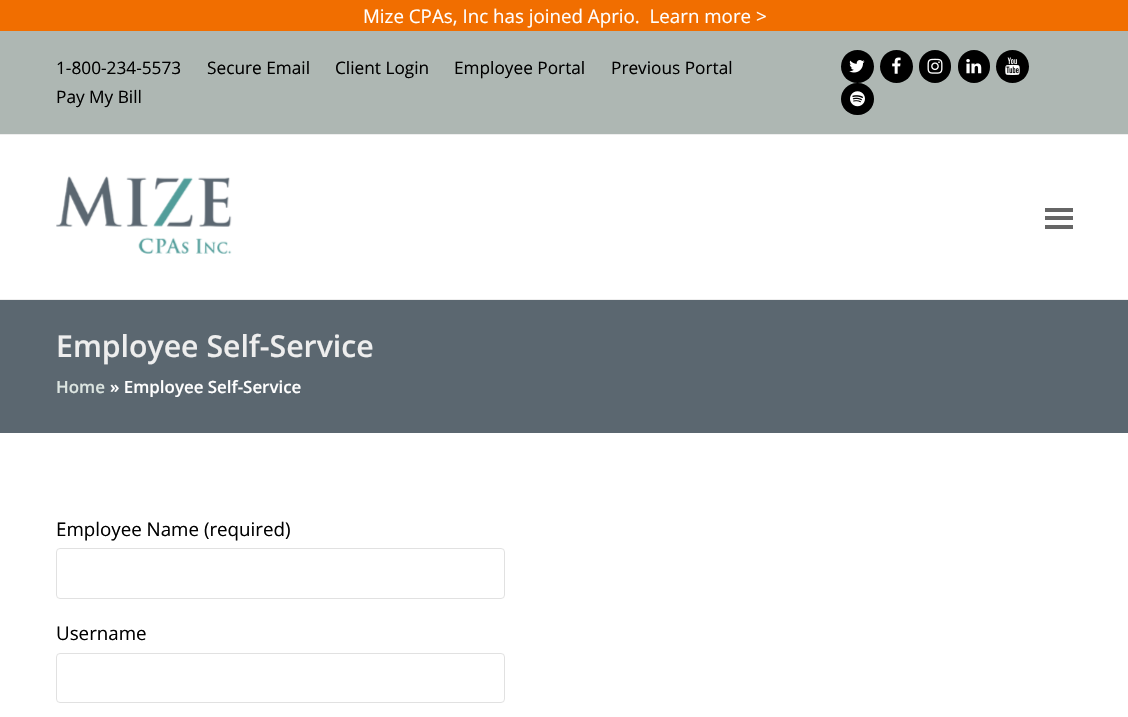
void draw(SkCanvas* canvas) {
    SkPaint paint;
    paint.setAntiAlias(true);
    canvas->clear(0xFFFFFFFF);
    paint.setColor(0xFFF16E00);
    canvas->drawRect(SkRect::MakeXYWH(0, 0, 1128, 31), paint);
    SkFont font1(fontMgr->matchFamilyStyle("Open Sans", SkFontStyle::Normal()), 18.75f);
    font1.setSubpixel(true);
    paint.setColor(0xFFFFFFFF);
    canvas->drawString("Mize CPAs, Inc has joined Aprio.  Learn more >", 363, 23, font1, paint);
    paint.setColor(0xFFAEB7B3);
    canvas->drawRect(SkRect::MakeXYWH(0, 31, 1128, 103), paint);
    paint.setColor(0xFFEEEEEE);
    canvas->drawRect(SkRect::MakeXYWH(0, 134, 1128, 1), paint);
    SkFont font2(fontMgr->matchFamilyStyle("Open Sans", SkFontStyle::Normal()), 17.25f);
    font2.setSubpixel(true);
    paint.setColor(0xFF000000);
    canvas->drawString("1-800-234-5573", 56, 74, font2, paint);
    canvas->drawString("Secure Email", 207, 74, font2, paint);
    canvas->drawString("Client Login", 335, 74, font2, paint);
    canvas->drawString("Employee Portal", 454, 74, font2, paint);
    canvas->drawString("Previous Portal", 611, 74, font2, paint);
    canvas->drawString("Pay My Bill", 56, 103, font2, paint);
    canvas->drawCircle(857.5f, 66.5f, 16.5f, paint);
    canvas->drawImageRect(SkImages::DeferredFromEncodedData(SkData::MakeFromFileName("img1.png")), SkRect::MakeXYWH(849, 60, 16, 13), SkSamplingOptions());
    canvas->drawCircle(896.5f, 66.5f, 16.5f, paint);
    canvas->drawImageRect(SkImages::DeferredFromEncodedData(SkData::MakeFromFileName("img2.png")), SkRect::MakeXYWH(892, 57, 9, 17), SkSamplingOptions());
    canvas->drawRoundRect(SkRect::MakeXYWH(919, 50, 32, 33), 16, 16, paint);
    canvas->drawImageRect(SkImages::DeferredFromEncodedData(SkData::MakeFromFileName("img3.png")), SkRect::MakeXYWH(927, 58, 16, 16), SkSamplingOptions());
    canvas->drawRoundRect(SkRect::MakeXYWH(958, 50, 32, 33), 16, 16, paint);
    canvas->drawImageRect(SkImages::DeferredFromEncodedData(SkData::MakeFromFileName("img4.png")), SkRect::MakeXYWH(966, 59, 16, 15), SkSamplingOptions());
    canvas->drawCircle(1012.5f, 66.5f, 16.5f, paint);
    canvas->drawImageRect(SkImages::DeferredFromEncodedData(SkData::MakeFromFileName("img5.png")), SkRect::MakeXYWH(1005, 57, 15, 18), SkSamplingOptions());
    canvas->drawRoundRect(SkRect::MakeXYWH(841, 83, 33, 32), 16, 16, paint);
    canvas->drawImageRect(SkImages::DeferredFromEncodedData(SkData::MakeFromFileName("img6.png")), SkRect::MakeXYWH(850, 91, 15, 16), SkSamplingOptions());
    canvas->drawImageRect(SkImages::DeferredFromEncodedData(SkData::MakeFromFileName("img7.png")), SkRect::MakeXYWH(56, 176, 176, 78), SkSamplingOptions());
    paint.setColor(0xFF666666);
    canvas->drawRect(SkRect::MakeXYWH(1045, 216, 28, 4), paint);
    canvas->drawRect(SkRect::MakeXYWH(1045, 208, 28, 4), paint);
    canvas->drawRect(SkRect::MakeXYWH(1045, 225, 28, 4), paint);
    paint.setColor(0xFF5B6770);
    canvas->drawRect(SkRect::MakeXYWH(0, 300, 1128, 133), paint);
    paint.setColor(0xFFEEEEEE);
    canvas->drawRect(SkRect::MakeXYWH(0, 299, 1128, 1), paint);
    SkFont font3(fontMgr->matchFamilyStyle("Open Sans", SkFontStyle(600, SkFontStyle::kNormal_Width, SkFontStyle::kUpright_Slant)), 30.25f);
    font3.setSubpixel(true);
    canvas->drawString("Employee Self-Service", 56, 357, font3, paint);
    SkFont font4(fontMgr->matchFamilyStyle("Open Sans", SkFontStyle(600, SkFontStyle::kNormal_Width, SkFontStyle::kUpright_Slant)), 16.9f);
    font4.setSubpixel(true);
    paint.setColor(0xFFDCE5E1);
    canvas->drawString("Home", 56, 393, font4, paint);
    paint.setColor(0xFFFFFFFF);
    canvas->drawString("» Employee Self-Service", 110, 393, font4, paint);
    paint.setColor(0xFF000000);
    canvas->drawString("Employee Name (required)", 56, 536, font1, paint);
    paint.setStyle(SkPaint::kStroke_Style);
    paint.setStrokeWidth(1);
    paint.setColor(0xFFE1E1E1);
    canvas->drawRoundRect(SkRect::MakeXYWH(56.5f, 548.5f, 448, 50), 3.5f, 3.5f, paint);
    paint.setStyle(SkPaint::kFill_Style);
    paint.setColor(0xFF000000);
    canvas->drawString("Username", 56, 640, font1, paint);
    paint.setStyle(SkPaint::kStroke_Style);
    paint.setColor(0xFFE1E1E1);
    canvas->drawRoundRect(SkRect::MakeXYWH(56.5f, 653.5f, 448, 49), 3.5f, 3.5f, paint);
}
